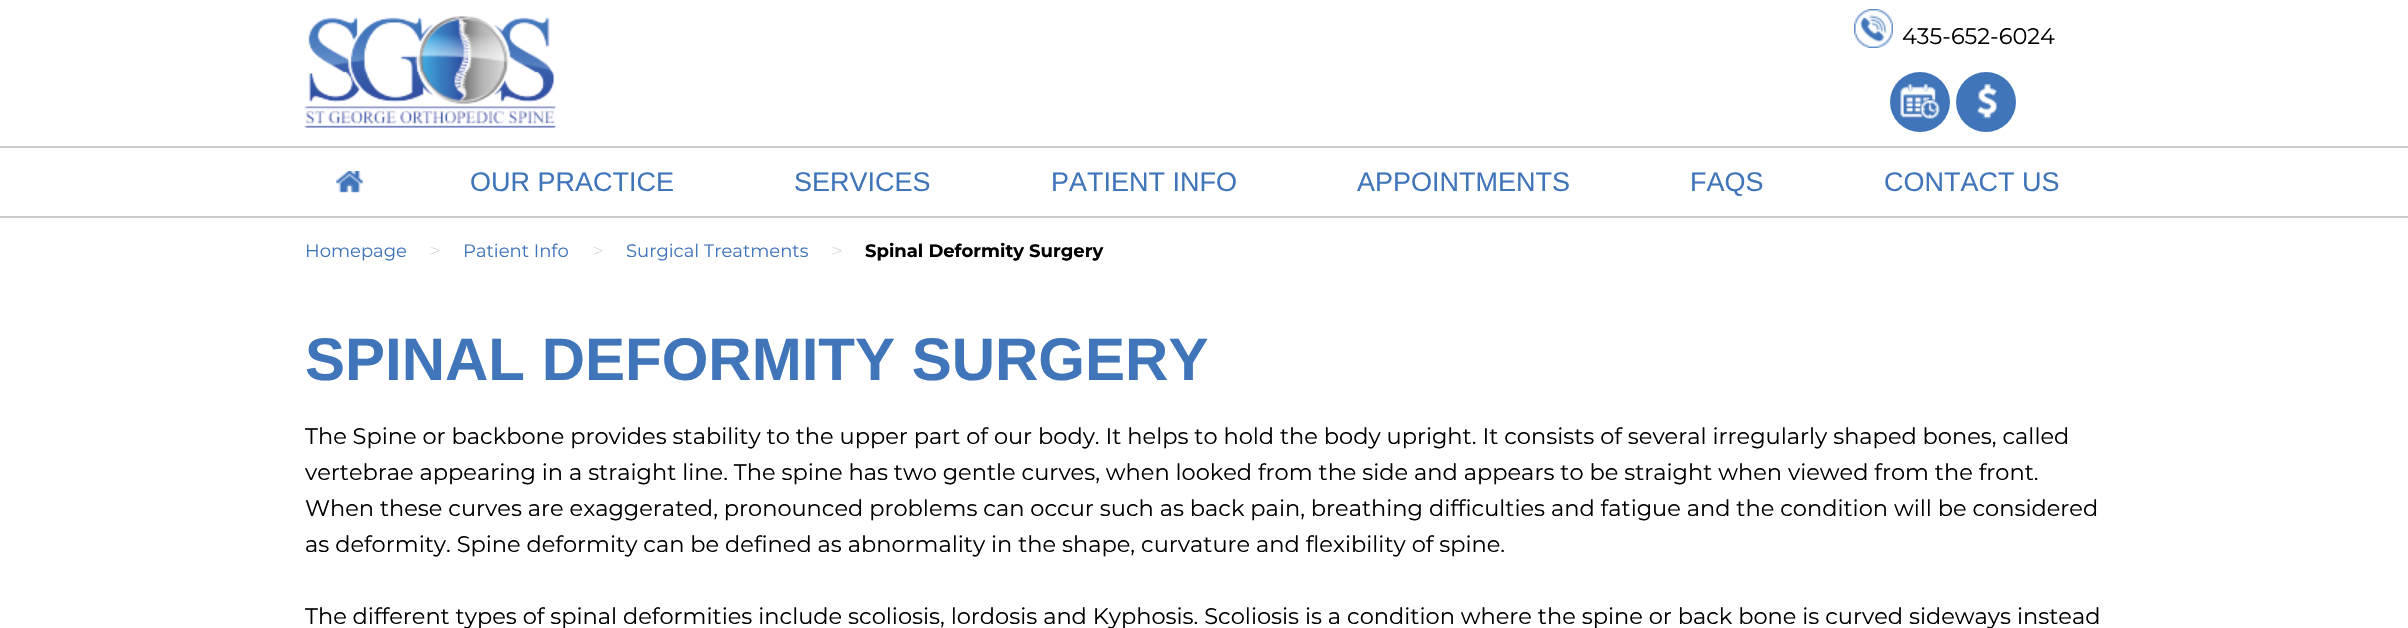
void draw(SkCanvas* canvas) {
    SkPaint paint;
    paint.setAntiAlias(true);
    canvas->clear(0xFFFFFFFF);
    canvas->drawImageRect(SkImages::DeferredFromEncodedData(SkData::MakeFromFileName("img1.png")), SkRect::MakeXYWH(304, 16, 253, 112), SkSamplingOptions());
    canvas->drawImageRect(SkImages::DeferredFromEncodedData(SkData::MakeFromFileName("img2.png")), SkRect::MakeXYWH(1854, 9, 39, 39), SkSamplingOptions());
    SkFont font1(fontMgr->matchFamilyStyle("Montserrat", SkFontStyle::Normal()), 22.5f);
    font1.setSubpixel(true);
    paint.setColor(0xFF000000);
    canvas->drawString("435-652-6024", 1902, 44, font1, paint);
    paint.setColor(0xFF4175BA);
    canvas->drawCircle(1920, 102, 30, paint);
    canvas->drawImageRect(SkImages::DeferredFromEncodedData(SkData::MakeFromFileName("img3.png")), SkRect::MakeXYWH(1900, 84, 40, 35), SkSamplingOptions());
    canvas->drawCircle(1986, 102, 30, paint);
    canvas->drawImageRect(SkImages::DeferredFromEncodedData(SkData::MakeFromFileName("img4.png")), SkRect::MakeXYWH(1977, 84, 20, 35), SkSamplingOptions());
    paint.setColor(0xFFCACBCC);
    canvas->drawRect(SkRect::MakeXYWH(0, 146, 2408, 2), paint);
    canvas->drawRect(SkRect::MakeXYWH(0, 216, 2408, 2), paint);
    canvas->drawImageRect(SkImages::DeferredFromEncodedData(SkData::MakeFromFileName("img5.png")), SkRect::MakeXYWH(336, 171, 27, 22), SkSamplingOptions());
    SkFont font2(fontMgr->matchFamilyStyle("Liberation Sans", SkFontStyle::Normal()), 27);
    font2.setSubpixel(true);
    paint.setColor(0xFF4175BA);
    canvas->drawString("OUR PRACTICE", 470, 191, font2, paint);
    canvas->drawString("SERVICES", 794, 191, font2, paint);
    canvas->drawString("PATIENT INFO", 1051, 191, font2, paint);
    canvas->drawString("APPOINTMENTS", 1357, 191, font2, paint);
    canvas->drawString("FAQS", 1690, 191, font2, paint);
    canvas->drawString("CONTACT US", 1884, 191, font2, paint);
    SkFont font3(fontMgr->matchFamilyStyle("Montserrat", SkFontStyle::Normal()), 18);
    font3.setSubpixel(true);
    canvas->drawString("Homepage", 305, 257, font3, paint);
    SkFont font4(fontMgr->matchFamilyStyle("Montserrat", SkFontStyle(200, SkFontStyle::kNormal_Width, SkFontStyle::kUpright_Slant)), 21);
    font4.setSubpixel(true);
    paint.setColor(0xFFCCCCCC);
    canvas->drawString(">", 429, 258, font4, paint);
    paint.setColor(0xFF4175BA);
    canvas->drawString("Patient Info", 463, 257, font3, paint);
    paint.setColor(0xFFCCCCCC);
    canvas->drawString(">", 592, 258, font4, paint);
    paint.setColor(0xFF4175BA);
    canvas->drawString("Surgical Treatments", 626, 257, font3, paint);
    paint.setColor(0xFFCCCCCC);
    canvas->drawString(">", 831, 258, font4, paint);
    SkFont font5(fontMgr->matchFamilyStyle("Montserrat", SkFontStyle::Bold()), 18);
    font5.setSubpixel(true);
    paint.setColor(0xFF000000);
    canvas->drawString("Spinal Deformity Surgery", 865, 257, font5, paint);
    SkFont font6(fontMgr->matchFamilyStyle("Liberation Sans", SkFontStyle::Bold()), 60);
    font6.setSubpixel(true);
    paint.setColor(0xFF4175BA);
    canvas->drawString("SPINAL DEFORMITY SURGERY", 305, 380, font6, paint);
    paint.setColor(0xFF000000);
    canvas->drawString("The Spine or backbone provides stability to the upper part of our body. It helps to hold the body upright. It consists of several irregularly shaped bones, called", 305, 444, font1, paint);
    canvas->drawString("vertebrae appearing in a straight line. The spine has two gentle curves, when looked from the side and appears to be straight when viewed from the front.", 305, 480, font1, paint);
    canvas->drawString("When these curves are exaggerated, pronounced problems can occur such as back pain, breathing difficulties and fatigue and the condition will be considered", 305, 516, font1, paint);
    canvas->drawString("as deformity. Spine deformity can be defined as abnormality in the shape, curvature and flexibility of spine.", 305, 552, font1, paint);
    canvas->drawString("The different types of spinal deformities include scoliosis, lordosis and Kyphosis. Scoliosis is a condition where the spine or back bone is curved sideways instead", 305, 624, font1, paint);
}
